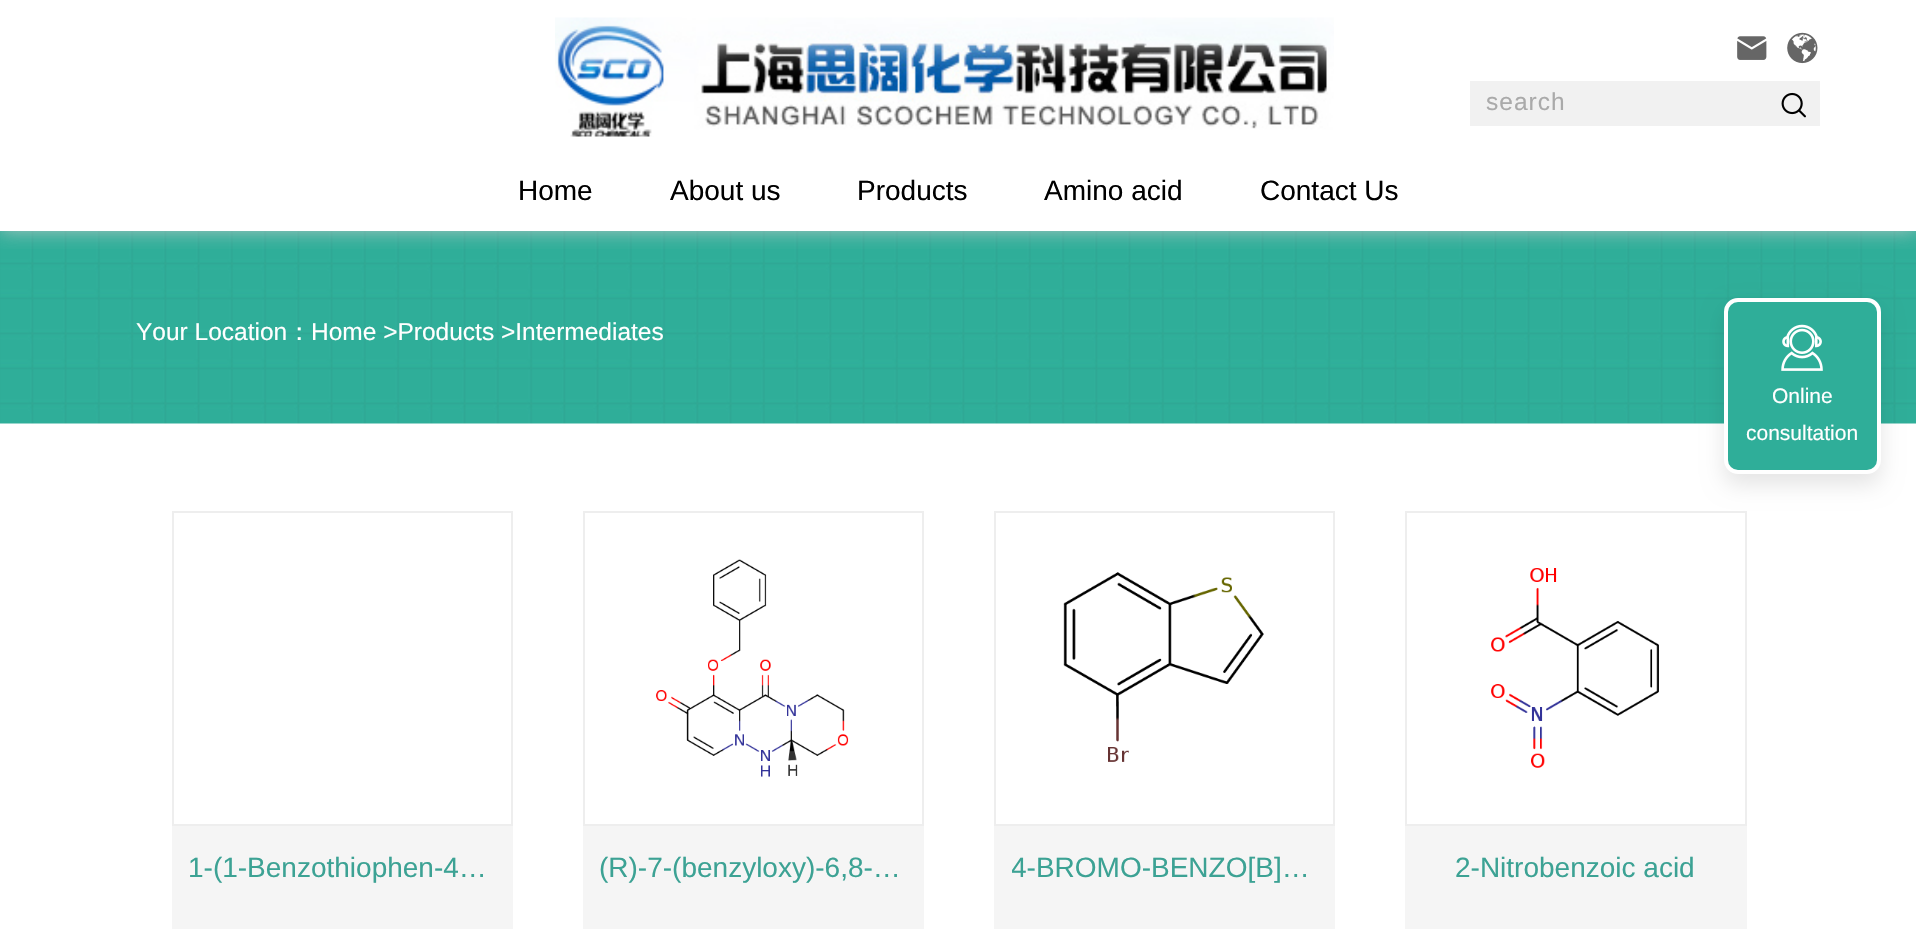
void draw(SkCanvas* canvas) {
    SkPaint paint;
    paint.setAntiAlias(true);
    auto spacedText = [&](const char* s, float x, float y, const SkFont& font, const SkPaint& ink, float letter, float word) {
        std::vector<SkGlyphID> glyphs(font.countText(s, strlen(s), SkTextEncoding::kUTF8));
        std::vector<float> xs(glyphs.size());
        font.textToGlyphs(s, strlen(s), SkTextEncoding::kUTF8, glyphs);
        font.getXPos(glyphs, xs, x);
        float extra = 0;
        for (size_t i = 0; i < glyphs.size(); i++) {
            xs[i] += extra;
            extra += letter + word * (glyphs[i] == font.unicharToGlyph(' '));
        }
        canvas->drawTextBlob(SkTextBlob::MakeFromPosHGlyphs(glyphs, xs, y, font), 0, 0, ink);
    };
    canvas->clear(0xFFFFFFFF);
    canvas->drawImageRect(SkImages::DeferredFromEncodedData(SkData::MakeFromFileName("img5.png")), SkRect::MakeXYWH(0, 231, 1916, 193), SkSamplingOptions());
    canvas->save();
    canvas->clipRect(SkRect::MakeXYWH(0, 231, 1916, 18));
    paint.setColor(0xCCCCCCCC);
    paint.setMaskFilter(SkMaskFilter::MakeBlur(kNormal_SkBlurStyle, 9));
    canvas->drawRect(SkRect::MakeXYWH(0, 0, 1916, 231), paint);
    paint.setMaskFilter(nullptr);
    canvas->restore();
    canvas->drawImageRect(SkImages::DeferredFromEncodedData(SkData::MakeFromFileName("img1.png")), SkRect::MakeXYWH(555, 17, 779, 120), SkSamplingOptions());
    canvas->drawImageRect(SkImages::DeferredFromEncodedData(SkData::MakeFromFileName("img2.png")), SkRect::MakeXYWH(1737, 36, 30, 24), SkSamplingOptions());
    canvas->drawImageRect(SkImages::DeferredFromEncodedData(SkData::MakeFromFileName("img3.png")), SkRect::MakeXYWH(1787, 32, 31, 32), SkSamplingOptions());
    paint.setColor(0xFFF1F1F1);
    canvas->drawRect(SkRect::MakeXYWH(1470, 81, 350, 45), paint);
    SkFont font1(fontMgr->matchFamilyStyle("Liberation Sans", SkFontStyle::Normal()), 24.5f);
    font1.setSubpixel(true);
    paint.setColor(0xFFAAAAAA);
    spacedText("search", 1486, 110, font1, paint, 1, 0);
    canvas->drawImageRect(SkImages::DeferredFromEncodedData(SkData::MakeFromFileName("img4.png")), SkRect::MakeXYWH(1781, 92, 25, 26), SkSamplingOptions());
    SkFont font2(fontMgr->matchFamilyStyle("Liberation Sans", SkFontStyle::Normal()), 28);
    font2.setSubpixel(true);
    paint.setColor(0xFF000000);
    canvas->drawString("Home", 518, 200, font2, paint);
    canvas->drawString("About us", 670, 200, font2, paint);
    canvas->drawString("Products", 857, 200, font2, paint);
    canvas->drawString("Amino acid", 1044, 200, font2, paint);
    canvas->drawString("Contact Us", 1260, 200, font2, paint);
    paint.setColor(0xFFFFFFFF);
    canvas->drawString("Your Location", 136, 340, font1, paint);
    SkFont font3(fontMgr->matchFamilyStyle("WenQuanYi Zen Hei", SkFontStyle(500, SkFontStyle::kNormal_Width, SkFontStyle::kUpright_Slant)), 24.5f);
    font3.setSubpixel(true);
    canvas->drawString("：", 287, 340, font3, paint);
    canvas->drawString("Home >Products >Intermediates", 311, 340, font1, paint);
    paint.setStyle(SkPaint::kStroke_Style);
    paint.setStrokeWidth(2);
    paint.setColor(0xFFEEEEEE);
    canvas->drawRect(SkRect::MakeXYWH(1406, 512, 340, 313), paint);
    paint.setStyle(SkPaint::kFill_Style);
    paint.setColor(0x1A000000);
    paint.setMaskFilter(SkMaskFilter::MakeBlur(kNormal_SkBlurStyle, 10.5f));
    canvas->drawRoundRect(SkRect::MakeXYWH(1724, 308, 157, 177), 14, 14, paint);
    paint.setMaskFilter(nullptr);
    paint.setColor(0xFF2FAE99);
    canvas->drawRoundRect(SkRect::MakeXYWH(1726, 300, 153, 172), 12, 12, paint);
    paint.setStyle(SkPaint::kStroke_Style);
    paint.setStrokeWidth(4);
    paint.setColor(0xFFFFFFFF);
    canvas->drawRoundRect(SkRect::MakeXYWH(1726, 300, 153, 172), 12, 12, paint);
    canvas->drawImageRect(SkImages::DeferredFromEncodedData(SkData::MakeFromFileName("img6.png")), SkRect::MakeXYWH(1781, 324, 42, 47), SkSamplingOptions());
    SkFont font4(fontMgr->matchFamilyStyle("Liberation Sans", SkFontStyle::Normal()), 21);
    font4.setSubpixel(true);
    paint.setStyle(SkPaint::kFill_Style);
    canvas->drawString("Online", 1772, 403, font4, paint);
    canvas->drawString("consultation", 1746, 440, font4, paint);
    paint.setStyle(SkPaint::kStroke_Style);
    paint.setStrokeWidth(2);
    paint.setColor(0xFFEEEEEE);
    canvas->drawRect(SkRect::MakeXYWH(173, 512, 339, 313), paint);
    paint.setStyle(SkPaint::kFill_Style);
    paint.setColor(0xFFF5F5F5);
    canvas->drawRect(SkRect::MakeXYWH(172, 826, 341, 103), paint);
    paint.setColor(0xFF3CA294);
    canvas->drawString("1-(1-Benzothiophen-4…", 188, 877, font2, paint);
    paint.setStyle(SkPaint::kStroke_Style);
    paint.setColor(0xFFEEEEEE);
    canvas->drawRect(SkRect::MakeXYWH(584, 512, 339, 313), paint);
    canvas->drawImageRect(SkImages::DeferredFromEncodedData(SkData::MakeFromFileName("img7.png")), SkRect::MakeXYWH(656, 559, 193, 218), SkSamplingOptions());
    paint.setStyle(SkPaint::kFill_Style);
    paint.setColor(0xFFF5F5F5);
    canvas->drawRect(SkRect::MakeXYWH(583, 826, 341, 103), paint);
    paint.setColor(0xFF3CA294);
    canvas->drawString("(R)-7-(benzyloxy)-6,8-…", 599, 877, font2, paint);
    paint.setStyle(SkPaint::kStroke_Style);
    paint.setColor(0xFFEEEEEE);
    canvas->drawRect(SkRect::MakeXYWH(995, 512, 339, 313), paint);
    canvas->drawImageRect(SkImages::DeferredFromEncodedData(SkData::MakeFromFileName("img8.png")), SkRect::MakeXYWH(1063, 572, 201, 190), SkSamplingOptions());
    paint.setStyle(SkPaint::kFill_Style);
    paint.setColor(0xFFF5F5F5);
    canvas->drawRect(SkRect::MakeXYWH(994, 826, 341, 103), paint);
    canvas->save();
    canvas->clipRect(SkRect::MakeXYWH(1012, 844, 306, 50));
    paint.setColor(0xFF3CA294);
    canvas->drawString("4-BROMO-BENZO[B]…", 1011, 877, font2, paint);
    canvas->restore();
    canvas->drawImageRect(SkImages::DeferredFromEncodedData(SkData::MakeFromFileName("img9.png")), SkRect::MakeXYWH(1491, 568, 168, 200), SkSamplingOptions());
    paint.setColor(0xFFF5F5F5);
    canvas->drawRect(SkRect::MakeXYWH(1405, 826, 342, 103), paint);
    paint.setColor(0xFF3CA294);
    canvas->drawString("2-Nitrobenzoic acid", 1455, 877, font2, paint);
}
